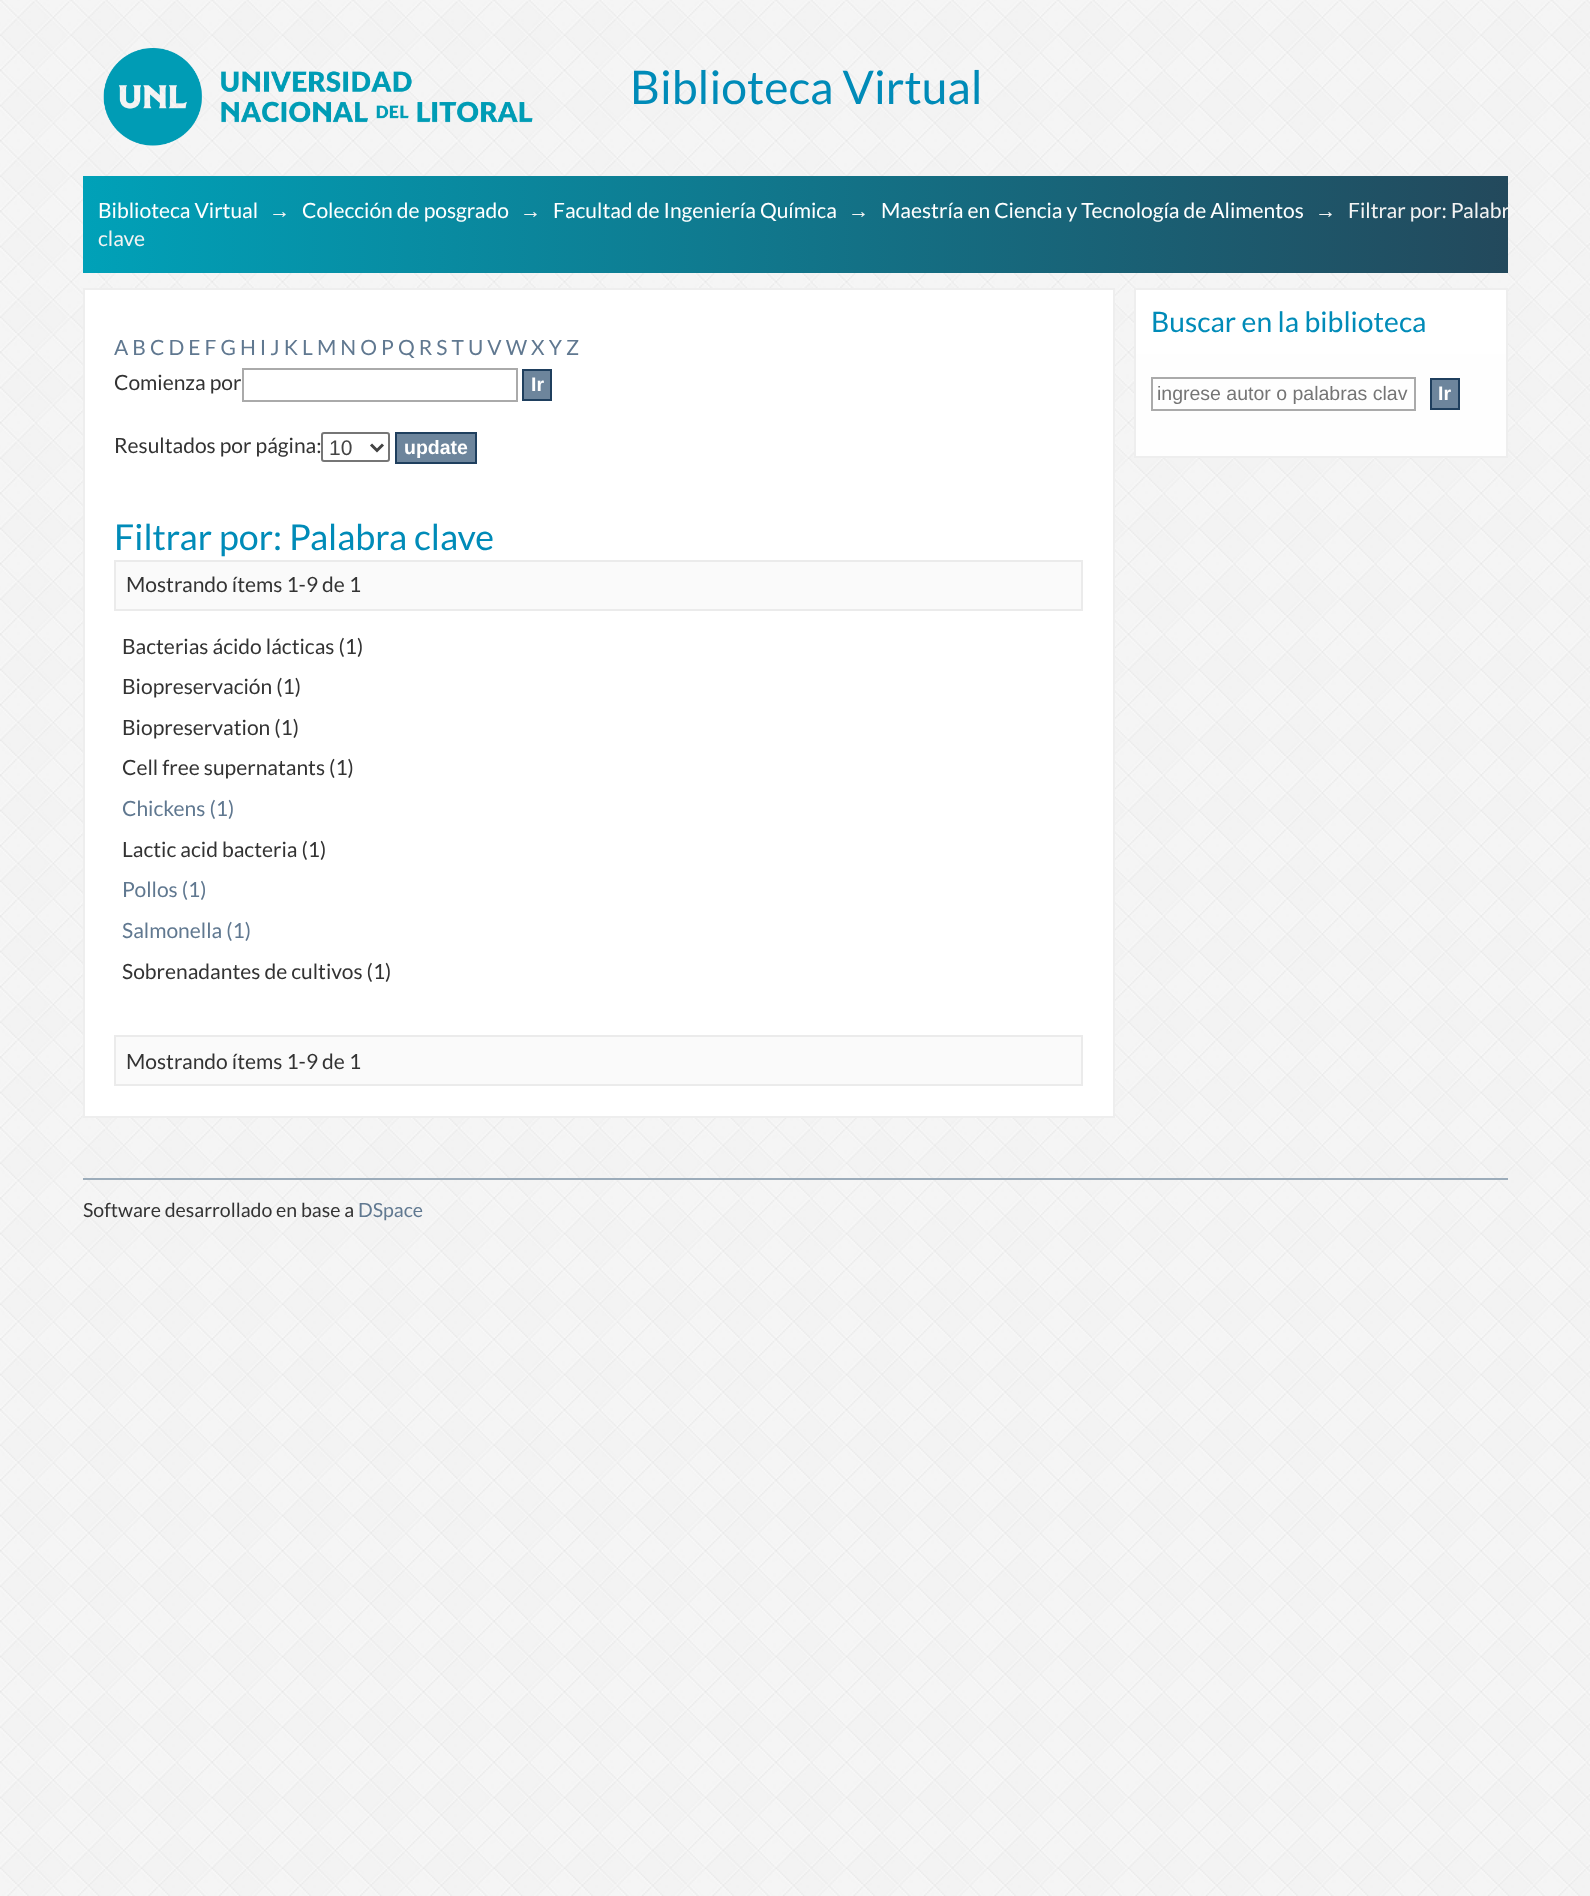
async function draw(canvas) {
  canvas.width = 1590
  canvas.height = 1896
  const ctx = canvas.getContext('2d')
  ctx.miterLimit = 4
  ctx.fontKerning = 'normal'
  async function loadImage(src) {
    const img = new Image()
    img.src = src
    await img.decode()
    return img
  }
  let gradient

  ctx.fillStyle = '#fff'
  ctx.fillRect(0, 0, 1590, 1896)
  ctx.drawImage(await loadImage('image0.png'), 0, 0, 1590, 1896)
  ctx.drawImage(await loadImage('image1.png'), 103, 48, 430, 98)
  ctx.font = '46.25px Lato'
  ctx.fillStyle = '#008bb8'
  ctx.fillText('Biblioteca Virtual', 630, 104)
  gradient = ctx.createLinearGradient(83, 224, 1508, 224)
  gradient.addColorStop(0, '#00a1b8')
  gradient.addColorStop(1, '#23495c')
  ctx.fillStyle = gradient
  ctx.fillRect(83, 176, 1425, 97)
  ctx.font = '21px Lato'
  ctx.fillStyle = '#fff'
  ctx.fillText('Biblioteca Virtual', 98, 218)
  ctx.font = '21px Liberation Sans'
  ctx.fillStyle = '#f3f3f3'
  ctx.fillText('→', 269, 218)
  ctx.font = '21px Lato'
  ctx.fillStyle = '#fff'
  ctx.fillText('Colección de posgrado', 302, 218)
  ctx.font = '21px Liberation Sans'
  ctx.fillStyle = '#f3f3f3'
  ctx.fillText('→', 520, 218)
  ctx.font = '21px Lato'
  ctx.fillStyle = '#fff'
  ctx.fillText('Facultad de Ingeniería Química', 553, 218)
  ctx.font = '21px Liberation Sans'
  ctx.fillStyle = '#f3f3f3'
  ctx.fillText('→', 848, 218)
  ctx.font = '21px Lato'
  ctx.fillStyle = '#fff'
  ctx.fillText('Maestría en Ciencia y Tecnología de Alimentos', 881, 218)
  ctx.font = '21px Liberation Sans'
  ctx.fillStyle = '#f3f3f3'
  ctx.fillText('→', 1315, 218)
  ctx.font = '21px Lato'
  ctx.fillText('Filtrar por: Palabr', 1348, 218)
  ctx.fillText('clave', 98, 246)
  ctx.fillStyle = '#fff'
  ctx.beginPath()
  ctx.rect(84, 289, 1030, 828)
  ctx.fill()
  ctx.strokeStyle = '#eee'
  ctx.lineWidth = 2
  ctx.stroke()
  ctx.fillStyle = '#607890'
  ctx.fillText('A B C D E F G H I J K L M N O P Q R S T U V W X Y Z', 114, 355)
  ctx.fillStyle = '#333'
  ctx.fillText('Comienza por', 114, 390)
  ctx.strokeStyle = '#aaa'
  ctx.strokeRect(243, 369, 274, 32)
  ctx.fillStyle = '#6d859c'
  ctx.beginPath()
  ctx.rect(523, 370, 28, 30)
  ctx.fill()
  ctx.strokeStyle = '#1f3f5e'
  ctx.stroke()
  ctx.font = 'bold 19.5px Liberation Sans'
  ctx.fillStyle = '#fff'
  ctx.fillText('Ir', 531, 391)
  ctx.font = '21px Lato'
  ctx.fillStyle = '#333'
  ctx.fillText('Resultados por página:', 114, 453)
  ctx.beginPath()
  ctx.roundRect(322, 433, 67, 28, 2)
  ctx.strokeStyle = '#767676'
  ctx.stroke()
  ctx.beginPath()
  ctx.moveTo(371, 444.5)
  ctx.lineTo(377, 450.5)
  ctx.lineTo(383, 444.5)
  ctx.strokeStyle = '#444'
  ctx.lineWidth = 3
  ctx.stroke()
  ctx.font = '21px Liberation Sans'
  ctx.fillStyle = '#444'
  ctx.fillText('10', 329, 455)
  ctx.fillStyle = '#6d859c'
  ctx.beginPath()
  ctx.rect(396, 433, 80, 30)
  ctx.fill()
  ctx.strokeStyle = '#1f3f5e'
  ctx.lineWidth = 2
  ctx.stroke()
  ctx.font = 'bold 19.5px Liberation Sans'
  ctx.fillStyle = '#fff'
  ctx.fillText('update', 404, 454)
  ctx.font = '35.75px Lato'
  ctx.fillStyle = '#008bb8'
  ctx.fillText('Filtrar por: Palabra clave', 114, 550)
  ctx.fillStyle = '#fafafa'
  ctx.beginPath()
  ctx.rect(115, 561, 967, 49)
  ctx.fill()
  ctx.strokeStyle = '#ebebeb'
  ctx.stroke()
  ctx.font = '21px Lato'
  ctx.fillStyle = '#333'
  ctx.fillText('Mostrando ítems 1-9 de 1', 126, 592)
  ctx.fillText('Bacterias ácido lácticas (1)', 122, 654)
  ctx.fillText('Biopreservación (1)', 122, 694)
  ctx.fillText('Biopreservation (1)', 122, 735)
  ctx.fillText('Cell free supernatants (1)', 122, 775)
  ctx.fillStyle = '#607890'
  ctx.fillText('Chickens (1)', 122, 816)
  ctx.fillStyle = '#333'
  ctx.fillText('Lactic acid bacteria (1)', 122, 857)
  ctx.fillStyle = '#607890'
  ctx.fillText('Pollos (1)', 122, 897)
  ctx.fillText('Salmonella (1)', 122, 938)
  ctx.fillStyle = '#333'
  ctx.fillText('Sobrenadantes de cultivos (1)', 122, 979)
  ctx.fillStyle = '#fafafa'
  ctx.beginPath()
  ctx.rect(115, 1036, 967, 49)
  ctx.fill()
  ctx.stroke()
  ctx.fillStyle = '#333'
  ctx.fillText('Mostrando ítems 1-9 de 1', 126, 1069)
  ctx.fillStyle = '#fff'
  ctx.fillRect(1136, 290, 370, 64)
  ctx.fillStyle = '#eee'
  ctx.fillRect(1134, 288, 374, 2)
  ctx.fillRect(1506, 288, 2, 170)
  ctx.fillRect(1134, 288, 2, 66)
  ctx.font = '28.25px Lato'
  ctx.fillStyle = '#008bb8'
  ctx.fillText('Buscar en la biblioteca', 1151, 332)
  ctx.fillStyle = '#fefefe'
  ctx.fillRect(1136, 354, 370, 102)
  ctx.fillStyle = '#eee'
  ctx.fillRect(1134, 456, 374, 2)
  ctx.fillRect(1134, 354, 2, 104)
  ctx.strokeStyle = '#aaa'
  ctx.strokeRect(1152, 378, 263, 32)
  ctx.font = '19.5px Liberation Sans'
  ctx.fillStyle = '#757575'
  ctx.fillText('ingrese autor o palabras clav', 1157, 400)
  ctx.fillStyle = '#6d859c'
  ctx.beginPath()
  ctx.rect(1431, 379, 28, 30)
  ctx.fill()
  ctx.strokeStyle = '#1f3f5e'
  ctx.stroke()
  ctx.font = 'bold 19.5px Liberation Sans'
  ctx.fillStyle = '#fff'
  ctx.fillText('Ir', 1438, 400)
  ctx.fillStyle = '#9cacba'
  ctx.fillRect(83, 1178, 1425, 2)
  ctx.font = '19.5px Lato'
  ctx.fillStyle = '#333'
  ctx.fillText('Software desarrollado en base a', 83, 1217)
  ctx.fillStyle = '#607890'
  ctx.fillText('DSpace', 358, 1217)
}

draw(document.querySelector('canvas'))
